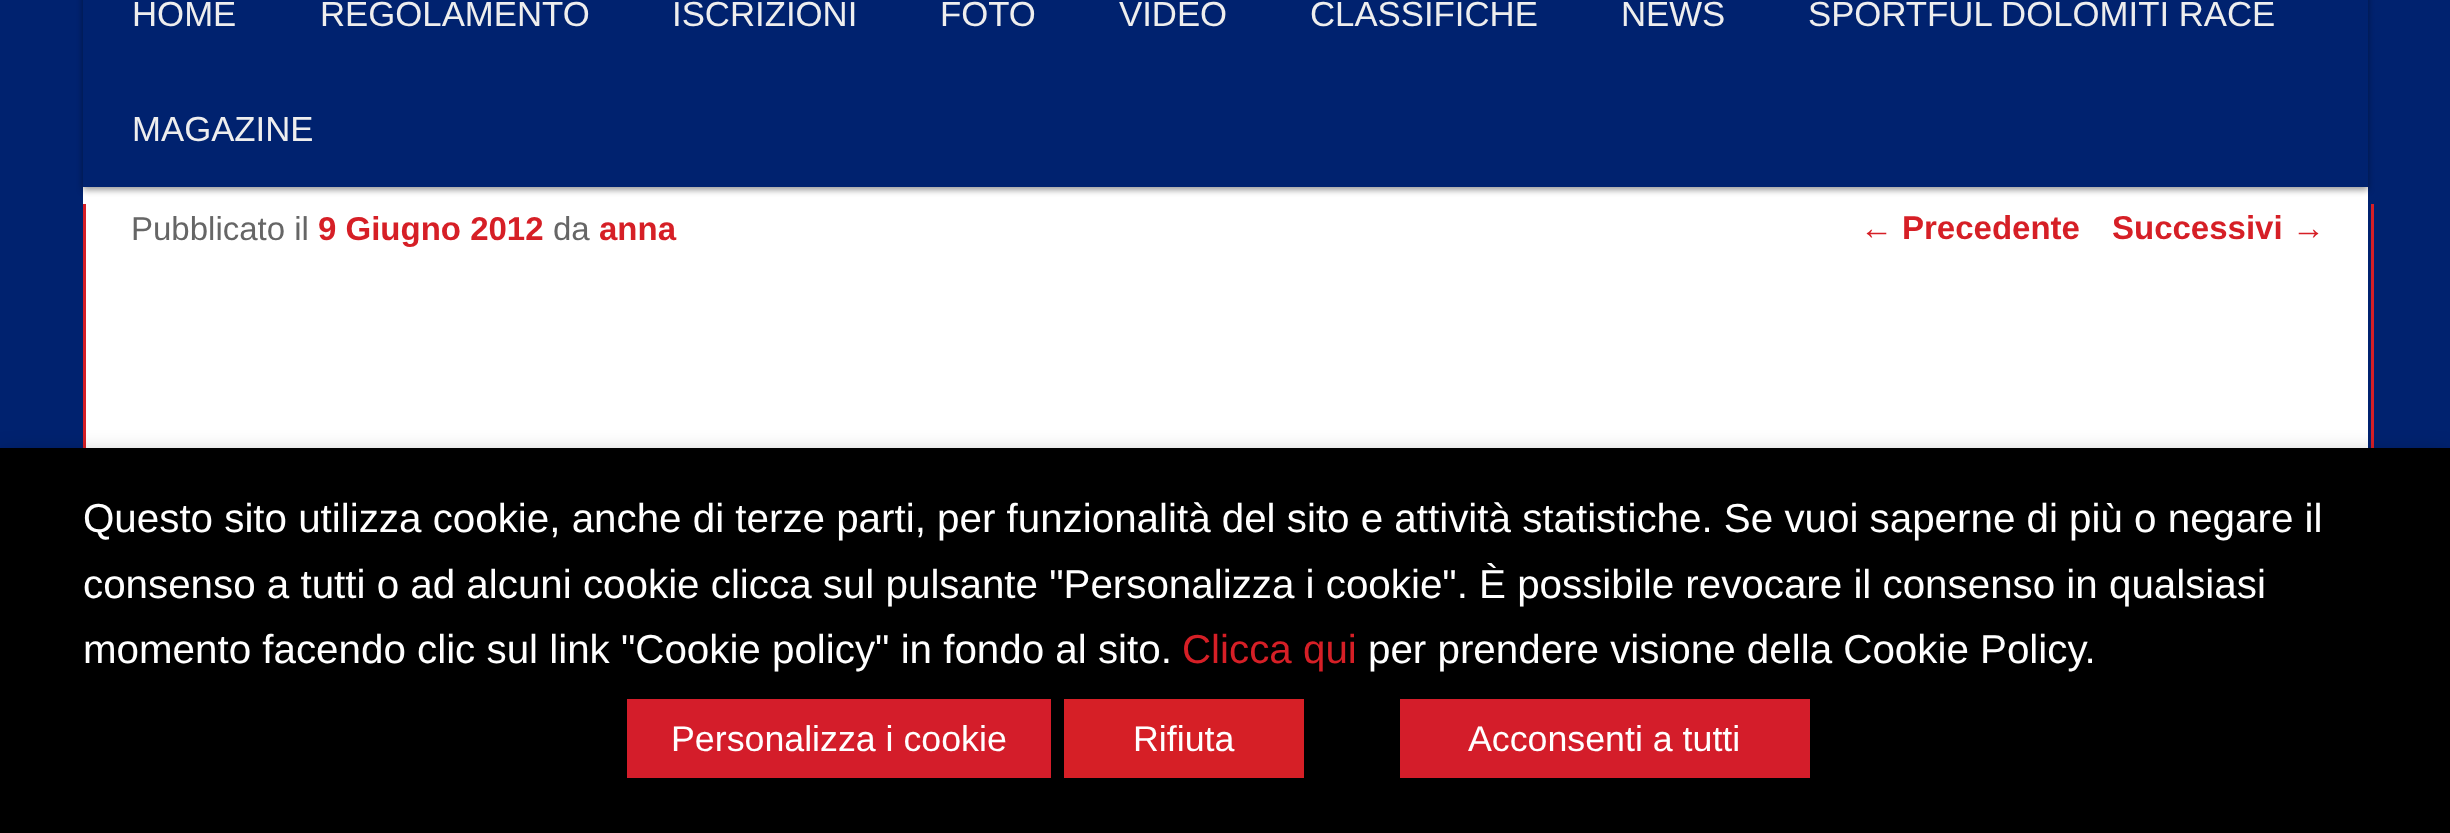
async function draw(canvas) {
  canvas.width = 2450
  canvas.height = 833
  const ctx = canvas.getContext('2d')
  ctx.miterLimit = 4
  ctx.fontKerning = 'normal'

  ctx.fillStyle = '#00226f'
  ctx.fillRect(0, 0, 2450, 833)
  ctx.fillStyle = '#fff'
  ctx.fillRect(83, 187, 2285, 261)
  ctx.fillStyle = '#00000066'
  ctx.filter = 'blur(3px)'
  ctx.beginPath()
  ctx.rect(83, -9, 2285, 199)
  ctx.fill()
  ctx.filter = 'none'
  ctx.fillStyle = '#00226f'
  ctx.fillRect(83, 0, 2285, 187)
  ctx.font = '34.75px Liberation Sans'
  ctx.fillStyle = '#eee'
  ctx.fillText('HOME', 132, 26)
  ctx.fillText('REGOLAMENTO', 320, 26)
  ctx.fillText('ISCRIZIONI', 672, 26)
  ctx.fillText('FOTO', 940, 26)
  ctx.fillText('VIDEO', 1119, 26)
  ctx.fillText('CLASSIFICHE', 1310, 26)
  ctx.fillText('NEWS', 1621, 26)
  ctx.fillText('SPORTFUL DOLOMITI RACE', 1808, 26)
  ctx.fillText('MAGAZINE', 132, 141)
  ctx.fillStyle = '#d61f26'
  ctx.fillRect(2371, 204, 3, 244)
  ctx.fillRect(83, 204, 3, 244)
  ctx.font = '33px Liberation Sans'
  ctx.fillStyle = '#666'
  ctx.fillText('Pubblicato il', 131, 240)
  ctx.font = 'bold 33px Liberation Sans'
  ctx.fillStyle = '#d61f26'
  ctx.fillText('9 Giugno 2012', 318, 240)
  ctx.font = '33px Liberation Sans'
  ctx.fillStyle = '#666'
  ctx.fillText('da', 553, 240)
  ctx.font = 'bold 33px Liberation Sans'
  ctx.fillStyle = '#d61f26'
  ctx.fillText('anna', 599, 240)
  ctx.font = '33px Liberation Sans'
  ctx.fillText('←', 1860, 239)
  ctx.font = 'bold 33px Liberation Sans'
  ctx.fillText('Precedente', 1902, 239)
  ctx.fillText('Successivi', 2112, 239)
  ctx.font = '33px Liberation Sans'
  ctx.fillText('→', 2292, 239)
  ctx.fillStyle = '#00000080'
  ctx.filter = 'blur(14px)'
  ctx.beginPath()
  ctx.rect(0, 462, 2450, 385)
  ctx.fill()
  ctx.filter = 'none'
  ctx.fillStyle = '#000'
  ctx.fillRect(0, 448, 2450, 385)
  ctx.font = '40.33px Liberation Sans'
  ctx.fillStyle = '#fff'
  ctx.fillText('Questo sito utilizza cookie, anche di terze parti, per funzionalità del sito e attività statistiche. Se vuoi saperne di più o negare il', 83, 532)
  ctx.fillText('consenso a tutti o ad alcuni cookie clicca sul pulsante "Personalizza i cookie". È possibile revocare il consenso in qualsiasi', 83, 598)
  ctx.fillText('momento facendo clic sul link "Cookie policy" in fondo al sito.', 83, 663)
  ctx.fillStyle = '#d61f26'
  ctx.fillText('Clicca qui', 1182, 663)
  ctx.fillStyle = '#fff'
  ctx.fillText('per prendere visione della Cookie Policy.', 1368, 663)
  ctx.fillStyle = '#d41d2a'
  ctx.fillRect(627, 699, 424, 79)
  ctx.font = '35.75px Liberation Sans'
  ctx.fillStyle = '#fff'
  ctx.fillText('Personalizza i cookie', 671, 751)
  ctx.fillStyle = '#d61f26'
  ctx.fillRect(1064, 699, 240, 79)
  ctx.fillStyle = '#fff'
  ctx.fillText('Rifiuta', 1133, 751)
  ctx.fillStyle = '#d41d2a'
  ctx.fillRect(1400, 699, 410, 79)
  ctx.fillStyle = '#fff'
  ctx.fillText('Acconsenti a tutti', 1468, 751)
}

draw(document.querySelector('canvas'))
